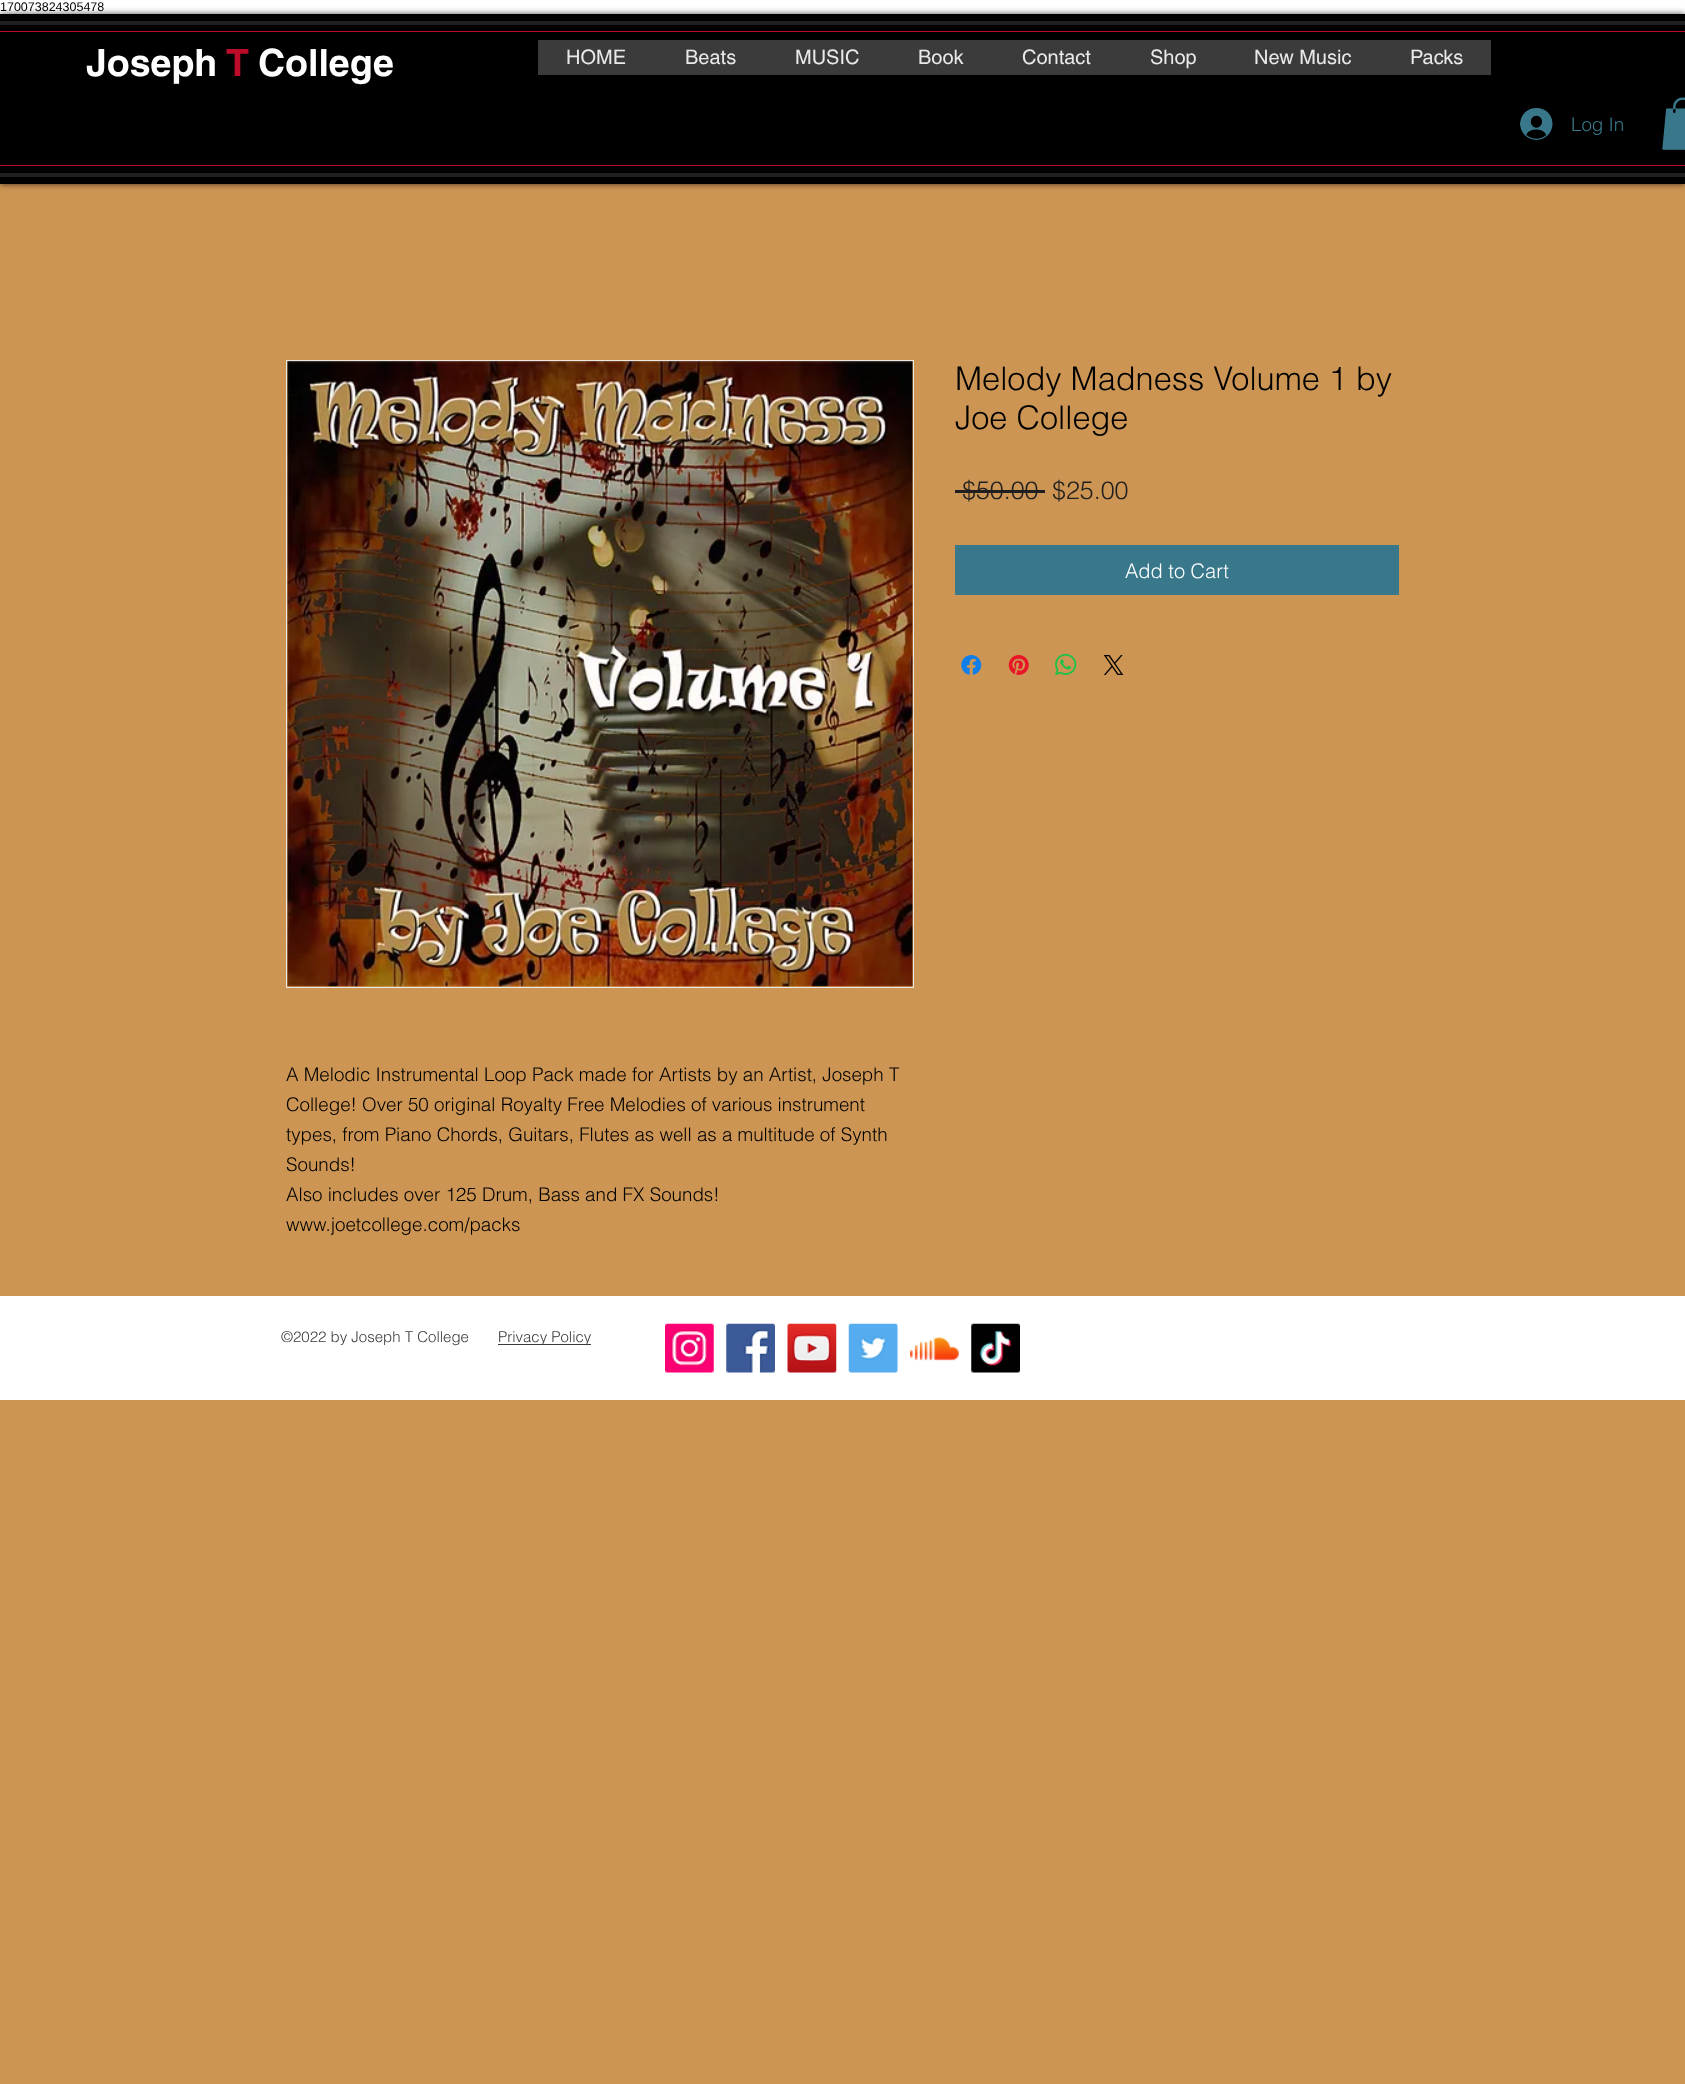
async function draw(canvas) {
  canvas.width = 1685
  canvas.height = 2084
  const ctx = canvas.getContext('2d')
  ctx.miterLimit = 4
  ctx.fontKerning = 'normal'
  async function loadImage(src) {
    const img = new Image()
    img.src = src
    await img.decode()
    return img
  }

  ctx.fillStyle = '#fff'
  ctx.fillRect(0, 0, 1685, 2084)
  ctx.font = '12.5px Liberation Sans'
  ctx.fillStyle = '#000'
  ctx.fillText('170073824305478', 0, 11)
  ctx.fillStyle = '#cd9553'
  ctx.fillRect(0, 184, 1685, 1900)
  ctx.fillStyle = '#000000b3'
  ctx.filter = 'blur(3px)'
  ctx.beginPath()
  ctx.rect(0, 14, 1685, 170)
  ctx.fill()
  ctx.filter = 'none'
  ctx.fillStyle = '#000'
  ctx.fillRect(0, 14, 1685, 170)
  ctx.fillStyle = '#1f1f1f'
  ctx.fillRect(0, 21, 1685, 4)
  ctx.fillRect(0, 173, 1685, 4)
  ctx.fillStyle = '#bd0b29'
  ctx.fillRect(0, 31, 1685, 1)
  ctx.fillRect(0, 165, 1685, 1)
  ctx.font = 'bold 37.5px helvetica'
  ctx.fillStyle = '#fff'
  ctx.fillText('Joseph', 86, 76)
  ctx.fillStyle = '#bd0b29'
  ctx.fillText('T', 226, 76)
  ctx.fillStyle = '#fff'
  ctx.fillText('College', 258, 76)
  ctx.fillStyle = '#3b3b3b'
  ctx.fillRect(538, 40, 953, 35)
  ctx.font = '20px helvetica'
  ctx.fillStyle = '#e9e9e9'
  ctx.fillText('HOME', 566, 64)
  ctx.fillText('Beats', 685, 64)
  ctx.fillText('MUSIC', 795, 64)
  ctx.fillText('Book', 918, 64)
  ctx.fillText('Contact', 1022, 64)
  ctx.fillText('Shop', 1150, 64)
  ctx.fillText('New Music', 1254, 64)
  ctx.fillText('Packs', 1410, 64)
  ctx.drawImage(await loadImage('image0.png'), 1520, 108, 33, 32)
  ctx.font = '300 18.75px helvetica'
  ctx.fillStyle = '#38788a'
  ctx.fillText('Log In', 1571, 131)
  ctx.drawImage(await loadImage('image1.png'), 1662, 97, 23, 53)
  ctx.font = '300 32.5px helvetica'
  ctx.fillStyle = '#000'
  ctx.fillText('Melody Madness Volume 1 by', 955, 390)
  ctx.fillText('Joe College', 955, 429)
  ctx.font = '300 25px helvetica'
  ctx.fillStyle = '#1f1f1f'
  ctx.fillText('$50.00', 962, 499)
  ctx.fillRect(955, 490, 90, 3)
  ctx.fillText('$25.00', 1052, 499)
  ctx.fillStyle = '#38788a'
  ctx.fillRect(955, 545, 444, 50)
  ctx.font = '300 20px helvetica'
  ctx.fillStyle = '#fff'
  ctx.fillText('Add to Cart', 1125, 578)
  ctx.drawImage(await loadImage('image2.png'), 961, 655, 21, 20)
  ctx.drawImage(await loadImage('image3.png'), 1008, 655, 21, 20)
  ctx.drawImage(await loadImage('image4.png'), 1055, 653, 22, 23)
  ctx.drawImage(await loadImage('image5.png'), 1103, 655, 21, 20)
  ctx.strokeStyle = '#e9e9e9'
  ctx.strokeRect(286.5, 360.5, 627, 627)
  ctx.drawImage(await loadImage('image6.png'), 287, 361, 626, 626)
  ctx.font = '300 18.75px helvetica'
  ctx.fillStyle = '#000'
  ctx.fillText('A Melodic Instrumental Loop Pack made for Artists by an Artist, Joseph T', 286, 1081)
  ctx.fillText('College! Over 50 original Royalty Free Melodies of various instrument', 286, 1111)
  ctx.fillText('types, from Piano Chords, Guitars, Flutes as well as a multitude of Synth', 286, 1141)
  ctx.fillText('Sounds!', 286, 1171)
  ctx.fillText('Also includes over 125 Drum, Bass and FX Sounds!', 286, 1201)
  ctx.fillText('www.joetcollege.com/packs', 286, 1231)
  ctx.fillStyle = '#fff'
  ctx.fillRect(0, 1296, 1685, 104)
  ctx.font = '300 15px helvetica'
  ctx.fillStyle = '#3b3b3b'
  ctx.fillText('©2022 by Joseph T College', 281, 1342)
  ctx.fillRect(498, 1344, 93, 1)
  ctx.fillText('Privacy Policy', 498, 1342)
  ctx.drawImage(await loadImage('image7.png'), 665, 1323, 49, 50)
  ctx.drawImage(await loadImage('image8.png'), 726, 1323, 49, 50)
  ctx.drawImage(await loadImage('image9.png'), 787, 1323, 50, 50)
  ctx.drawImage(await loadImage('image10.png'), 848, 1323, 50, 50)
  ctx.drawImage(await loadImage('image11.png'), 910, 1337, 49, 24)
  ctx.drawImage(await loadImage('image12.png'), 971, 1323, 49, 50)
}

draw(document.querySelector('canvas'))
